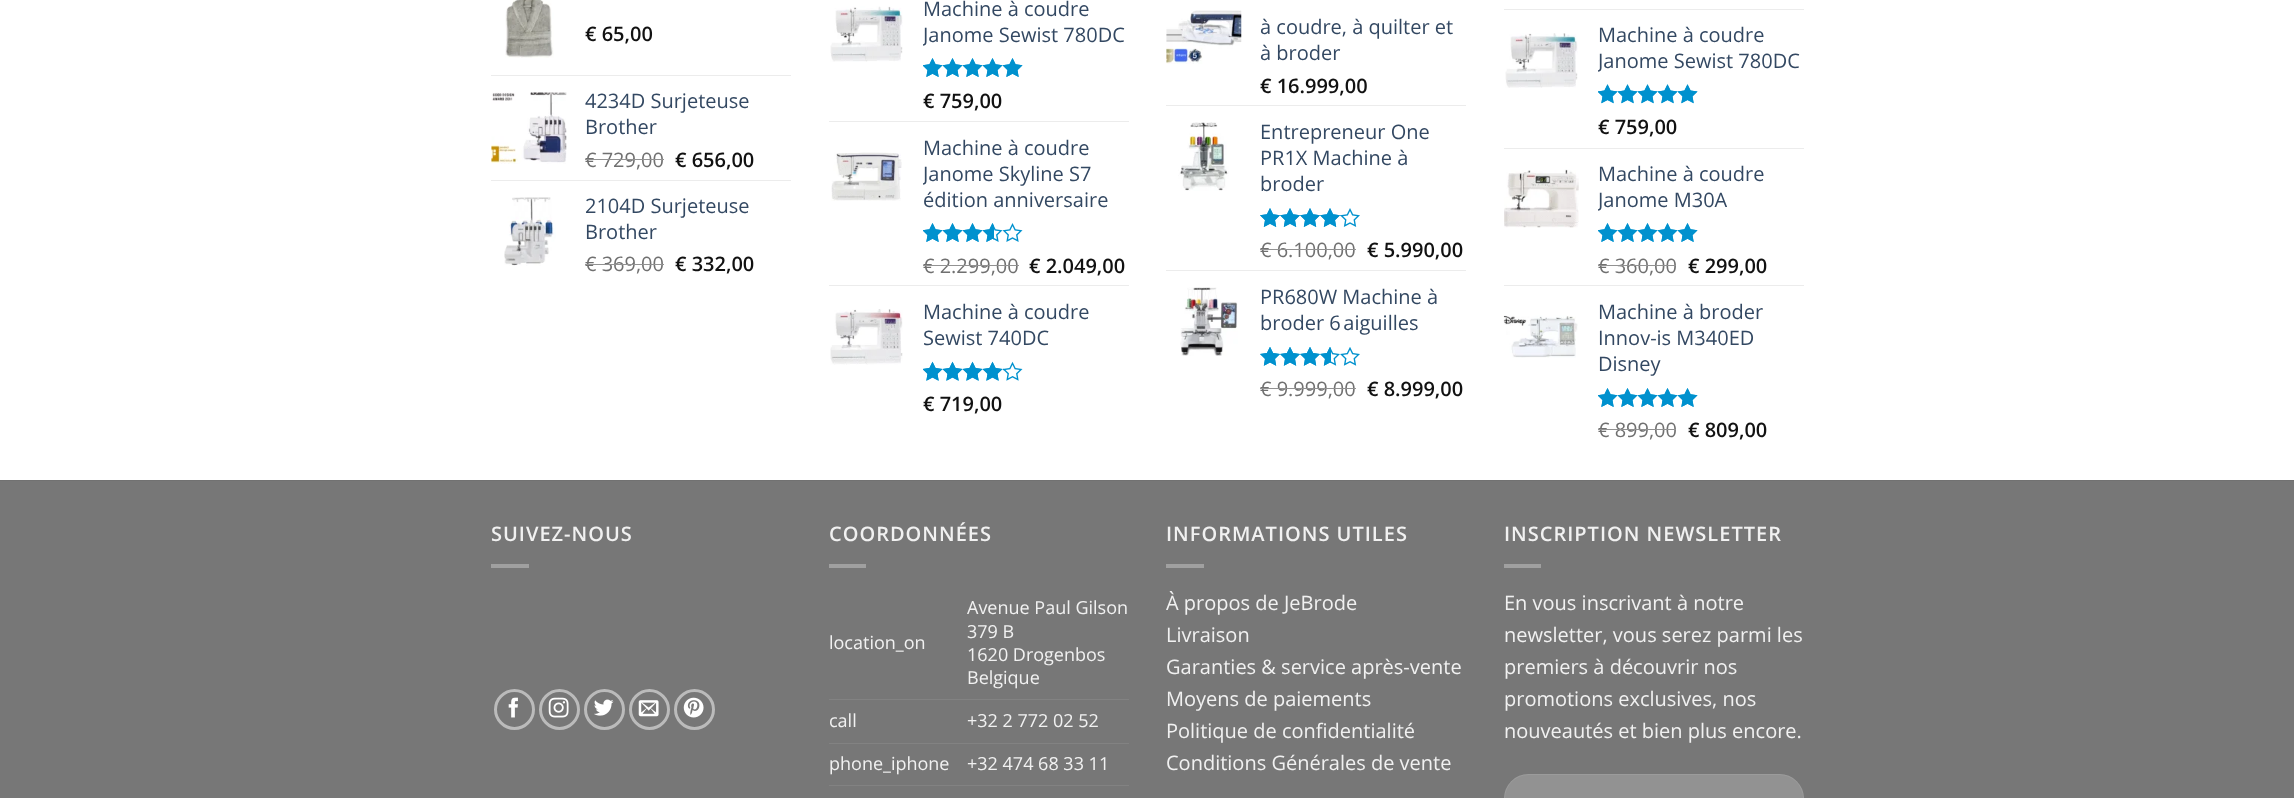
async function draw(canvas) {
  canvas.width = 2294
  canvas.height = 798
  const ctx = canvas.getContext('2d')
  ctx.miterLimit = 4
  ctx.fontKerning = 'normal'
  async function loadImage(src) {
    const img = new Image()
    img.src = src
    await img.decode()
    return img
  }

  ctx.fillStyle = '#fff'
  ctx.fillRect(0, 0, 2294, 798)
  ctx.drawImage(await loadImage('image0.png'), 505, 0, 49, 58)
  ctx.font = '600 20px Open Sans'
  ctx.fillStyle = '#111'
  ctx.fillText('€ 65,00', 585, 41)
  ctx.fillStyle = '#ececec'
  ctx.fillRect(491, 75, 300, 1)
  ctx.drawImage(await loadImage('image1.png'), 491, 92, 76, 72)
  ctx.font = '20px Open Sans'
  ctx.fillStyle = '#334862'
  ctx.fillText('4234D Surjeteuse', 585, 108)
  ctx.fillText('Brother', 585, 134)
  ctx.fillStyle = '#707070'
  ctx.fillText('€ 729,00', 585, 167)
  ctx.fillStyle = '#929292'
  ctx.fillRect(585, 159, 79, 1)
  ctx.font = '600 20px Open Sans'
  ctx.fillStyle = '#111'
  ctx.fillText('€ 656,00', 675, 167)
  ctx.fillStyle = '#ececec'
  ctx.fillRect(491, 180, 300, 1)
  ctx.drawImage(await loadImage('image2.png'), 504, 197, 52, 69)
  ctx.font = '20px Open Sans'
  ctx.fillStyle = '#334862'
  ctx.fillText('2104D Surjeteuse', 585, 213)
  ctx.fillText('Brother', 585, 239)
  ctx.fillStyle = '#707070'
  ctx.fillText('€ 369,00', 585, 271)
  ctx.fillStyle = '#929292'
  ctx.fillRect(585, 264, 79, 1)
  ctx.font = '600 20px Open Sans'
  ctx.fillStyle = '#111'
  ctx.fillText('€ 332,00', 675, 271)
  ctx.drawImage(await loadImage('image3.png'), 830, 6, 73, 56)
  ctx.font = '20px Open Sans'
  ctx.fillStyle = '#334862'
  ctx.fillText('Machine à coudre', 923, 16)
  ctx.save()
  ctx.beginPath()
  ctx.rect(923, 0, 206, 48)
  ctx.clip()
  ctx.fillText('Janome Sewist 780DC', 923, 42)
  ctx.restore()
  ctx.drawImage(await loadImage('image4.png'), 923, 58, 100, 19)
  ctx.drawImage(await loadImage('image5.png'), 923, 58, 100, 19)
  ctx.font = '600 20px Open Sans'
  ctx.fillStyle = '#111'
  ctx.fillText('€ 759,00', 923, 108)
  ctx.fillStyle = '#ececec'
  ctx.fillRect(829, 121, 300, 1)
  ctx.font = '20px Open Sans'
  ctx.fillStyle = '#334862'
  ctx.fillText('Machine à coudre', 923, 155)
  ctx.drawImage(await loadImage('image6.png'), 831, 152, 71, 49)
  ctx.save()
  ctx.beginPath()
  ctx.rect(923, 135, 206, 78)
  ctx.clip()
  ctx.fillText('Janome Skyline S7', 923, 181)
  ctx.restore()
  ctx.fillText('édition anniversaire', 923, 207)
  ctx.drawImage(await loadImage('image4.png'), 923, 223, 100, 19)
  ctx.drawImage(await loadImage('image7.png'), 923, 223, 71, 19)
  ctx.fillStyle = '#707070'
  ctx.fillText('€ 2.299,00', 923, 273)
  ctx.fillStyle = '#929292'
  ctx.fillRect(923, 265, 96, 1)
  ctx.font = '600 20px Open Sans'
  ctx.fillStyle = '#111'
  ctx.fillText('€ 2.049,00', 1029, 273)
  ctx.fillStyle = '#ececec'
  ctx.fillRect(829, 285, 300, 1)
  ctx.drawImage(await loadImage('image8.png'), 830, 309, 73, 56)
  ctx.font = '20px Open Sans'
  ctx.fillStyle = '#334862'
  ctx.fillText('Machine à coudre', 923, 319)
  ctx.fillText('Sewist 740DC', 923, 345)
  ctx.drawImage(await loadImage('image9.png'), 923, 361, 100, 20)
  ctx.drawImage(await loadImage('image10.png'), 923, 361, 81, 20)
  ctx.font = '600 20px Open Sans'
  ctx.fillStyle = '#111'
  ctx.fillText('€ 719,00', 923, 411)
  ctx.drawImage(await loadImage('image11.png'), 1166, 10, 76, 54)
  ctx.font = '20px Open Sans'
  ctx.fillStyle = '#334862'
  ctx.fillText('à coudre, à quilter et', 1260, 34)
  ctx.fillText('à broder', 1260, 60)
  ctx.font = '600 20px Open Sans'
  ctx.fillStyle = '#111'
  ctx.fillText('€ 16.999,00', 1260, 93)
  ctx.fillStyle = '#ececec'
  ctx.fillRect(1166, 105, 300, 1)
  ctx.drawImage(await loadImage('image12.png'), 1178, 122, 51, 69)
  ctx.font = '20px Open Sans'
  ctx.fillStyle = '#334862'
  ctx.fillText('Entrepreneur One', 1260, 139)
  ctx.fillText('PR1X Machine à', 1260, 165)
  ctx.fillText('broder', 1260, 191)
  ctx.drawImage(await loadImage('image13.png'), 1260, 208, 100, 19)
  ctx.drawImage(await loadImage('image14.png'), 1260, 208, 81, 19)
  ctx.fillStyle = '#707070'
  ctx.fillText('€ 6.100,00', 1260, 257)
  ctx.fillStyle = '#929292'
  ctx.fillRect(1260, 249, 96, 1)
  ctx.font = '600 20px Open Sans'
  ctx.fillStyle = '#111'
  ctx.fillText('€ 5.990,00', 1367, 257)
  ctx.fillStyle = '#ececec'
  ctx.fillRect(1166, 270, 300, 1)
  ctx.drawImage(await loadImage('image15.png'), 1180, 287, 58, 69)
  ctx.font = '20px Open Sans'
  ctx.fillStyle = '#334862'
  ctx.fillText('PR680W Machine à', 1260, 304)
  ctx.fillText('broder 6 aiguilles', 1260, 330)
  ctx.drawImage(await loadImage('image16.png'), 1260, 347, 100, 19)
  ctx.drawImage(await loadImage('image17.png'), 1260, 347, 71, 19)
  ctx.fillStyle = '#707070'
  ctx.fillText('€ 9.999,00', 1260, 396)
  ctx.fillStyle = '#929292'
  ctx.fillRect(1260, 388, 96, 1)
  ctx.font = '600 20px Open Sans'
  ctx.fillStyle = '#111'
  ctx.fillText('€ 8.999,00', 1367, 396)
  ctx.fillStyle = '#ececec'
  ctx.fillRect(1504, 9, 300, 1)
  ctx.drawImage(await loadImage('image18.png'), 1505, 33, 73, 55)
  ctx.font = '20px Open Sans'
  ctx.fillStyle = '#334862'
  ctx.fillText('Machine à coudre', 1598, 42)
  ctx.save()
  ctx.beginPath()
  ctx.rect(1598, 23, 206, 51)
  ctx.clip()
  ctx.fillText('Janome Sewist 780DC', 1598, 68)
  ctx.restore()
  ctx.drawImage(await loadImage('image19.png'), 1598, 84, 100, 20)
  ctx.drawImage(await loadImage('image20.png'), 1598, 84, 100, 20)
  ctx.font = '600 20px Open Sans'
  ctx.fillStyle = '#111'
  ctx.fillText('€ 759,00', 1598, 134)
  ctx.fillStyle = '#ececec'
  ctx.fillRect(1504, 148, 300, 1)
  ctx.drawImage(await loadImage('image21.png'), 1504, 169, 75, 59)
  ctx.font = '20px Open Sans'
  ctx.fillStyle = '#334862'
  ctx.fillText('Machine à coudre', 1598, 181)
  ctx.save()
  ctx.beginPath()
  ctx.rect(1598, 161, 206, 52)
  ctx.clip()
  ctx.fillText('Janome M30A', 1598, 207)
  ctx.restore()
  ctx.drawImage(await loadImage('image4.png'), 1598, 223, 100, 19)
  ctx.drawImage(await loadImage('image5.png'), 1598, 223, 100, 19)
  ctx.fillStyle = '#707070'
  ctx.fillText('€ 360,00', 1598, 273)
  ctx.fillStyle = '#929292'
  ctx.fillRect(1598, 265, 78, 1)
  ctx.font = '600 20px Open Sans'
  ctx.fillStyle = '#111'
  ctx.fillText('€ 299,00', 1688, 273)
  ctx.fillStyle = '#ececec'
  ctx.fillRect(1504, 285, 300, 1)
  ctx.font = '20px Open Sans'
  ctx.fillStyle = '#334862'
  ctx.fillText('Machine à broder', 1598, 319)
  ctx.drawImage(await loadImage('image22.png'), 1503, 315, 75, 43)
  ctx.fillText('Innov-is M340ED', 1598, 345)
  ctx.fillText('Disney', 1598, 371)
  ctx.drawImage(await loadImage('image4.png'), 1598, 388, 100, 19)
  ctx.drawImage(await loadImage('image5.png'), 1598, 388, 100, 19)
  ctx.fillStyle = '#707070'
  ctx.fillText('€ 899,00', 1598, 437)
  ctx.fillStyle = '#929292'
  ctx.fillRect(1598, 429, 78, 1)
  ctx.font = '600 20px Open Sans'
  ctx.fillStyle = '#111'
  ctx.fillText('€ 809,00', 1688, 437)
  ctx.fillStyle = '#777'
  ctx.fillRect(0, 481, 2294, 317)
  ctx.fillStyle = '#717171'
  ctx.fillRect(0, 480, 2294, 1)
  ctx.letterSpacing = '1px'
  ctx.fillStyle = '#f1f1f1'
  ctx.fillText('SUIVEZ-NOUS', 491, 541)
  ctx.fillStyle = '#a0a0a0'
  ctx.fillRect(491, 564, 38, 4)
  ctx.beginPath()
  ctx.arc(514.5, 709.5, 19, 0, 2 * Math.PI)
  ctx.strokeStyle = '#bbb'
  ctx.lineWidth = 3
  ctx.stroke()
  ctx.drawImage(await loadImage('image23.png'), 508, 697, 10, 21)
  ctx.beginPath()
  ctx.arc(559.5, 709.5, 19, 0, 2 * Math.PI)
  ctx.stroke()
  ctx.drawImage(await loadImage('image24.png'), 548, 697, 21, 21)
  ctx.beginPath()
  ctx.arc(604.5, 709.5, 19, 0, 2 * Math.PI)
  ctx.stroke()
  ctx.drawImage(await loadImage('image25.png'), 594, 699, 20, 17)
  ctx.beginPath()
  ctx.arc(649.5, 709.5, 19, 0, 2 * Math.PI)
  ctx.stroke()
  ctx.drawImage(await loadImage('image26.png'), 638, 700, 21, 17)
  ctx.beginPath()
  ctx.arc(694.5, 709.5, 19, 0, 2 * Math.PI)
  ctx.stroke()
  ctx.drawImage(await loadImage('image27.png'), 683, 697, 21, 21)
  ctx.fillStyle = '#f1f1f1'
  ctx.fillText('COORDONNÉES', 829, 541)
  ctx.fillStyle = '#a0a0a0'
  ctx.fillRect(829, 564, 37, 4)
  ctx.fillStyle = '#828282'
  ctx.fillRect(829, 699, 300, 1)
  ctx.letterSpacing = '0px'
  ctx.font = '18px Open Sans'
  ctx.fillStyle = '#f1f1f1'
  ctx.fillText('location_on', 829, 649)
  ctx.fillText('Avenue Paul Gilson', 967, 614)
  ctx.fillText('379 B', 967, 638)
  ctx.fillText('1620 Drogenbos', 967, 661)
  ctx.fillText('Belgique', 967, 684)
  ctx.fillStyle = '#828282'
  ctx.fillRect(829, 743, 300, 1)
  ctx.fillStyle = '#f1f1f1'
  ctx.fillText('call', 829, 727)
  ctx.fillText('+32 2 772 02 52', 967, 727)
  ctx.fillStyle = '#828282'
  ctx.fillRect(829, 785, 300, 1)
  ctx.fillStyle = '#f1f1f1'
  ctx.fillText('phone_iphone', 829, 770)
  ctx.fillText('+32 474 68 33 11', 967, 770)
  ctx.letterSpacing = '1px'
  ctx.font = '600 20px Open Sans'
  ctx.fillText('INFORMATIONS UTILES', 1166, 541)
  ctx.fillStyle = '#a0a0a0'
  ctx.fillRect(1166, 564, 38, 4)
  ctx.letterSpacing = '0px'
  ctx.font = '20px Open Sans'
  ctx.fillStyle = '#f1f1f1'
  ctx.fillText('À propos de JeBrode', 1166, 610)
  ctx.fillText('Livraison', 1166, 642)
  ctx.fillText('Garanties & service après-vente', 1166, 674)
  ctx.fillText('Moyens de paiements', 1166, 706)
  ctx.fillText('Politique de confidentialité', 1166, 738)
  ctx.fillText('Conditions Générales de vente', 1166, 770)
  ctx.letterSpacing = '1px'
  ctx.font = '600 20px Open Sans'
  ctx.fillText('INSCRIPTION NEWSLETTER', 1504, 541)
  ctx.fillStyle = '#a0a0a0'
  ctx.fillRect(1504, 564, 37, 4)
  ctx.letterSpacing = '0px'
  ctx.font = '20px Open Sans'
  ctx.fillStyle = '#f1f1f1'
  ctx.fillText('En vous inscrivant à notre', 1504, 610)
  ctx.fillText('newsletter, vous serez parmi les', 1504, 642)
  ctx.fillText('premiers à découvrir nos', 1504, 674)
  ctx.fillText('promotions exclusives, nos', 1504, 706)
  ctx.fillText('nouveautés et bien plus encore.', 1504, 738)
  ctx.fillStyle = '#929292'
  ctx.beginPath()
  ctx.roundRect(1504, 774, 300, 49, 24.5)
  ctx.fill()
  ctx.beginPath()
  ctx.roundRect(1504.5, 774.5, 299, 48, 24)
  ctx.strokeStyle = '#ffffff17'
  ctx.lineWidth = 1
  ctx.stroke()
}

draw(document.querySelector('canvas'))
